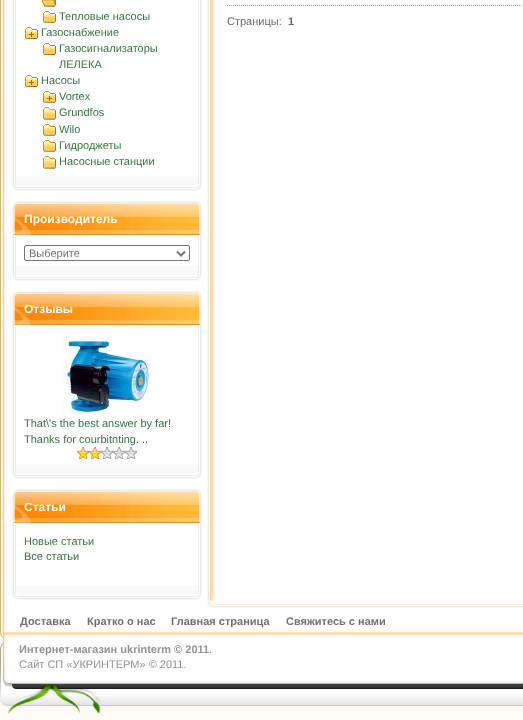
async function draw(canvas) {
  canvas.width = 523
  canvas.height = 720
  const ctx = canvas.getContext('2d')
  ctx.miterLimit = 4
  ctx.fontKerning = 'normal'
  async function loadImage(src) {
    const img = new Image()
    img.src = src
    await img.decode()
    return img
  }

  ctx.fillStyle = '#fffcf8'
  ctx.fillRect(0, 0, 523, 720)
  ctx.fillStyle = '#fff'
  ctx.fillRect(214, 0, 309, 598)
  ctx.drawImage(await loadImage('image0.png'), 0, 0, 214, 610)
  ctx.drawImage(await loadImage('image1.png'), 207, 598, 316, 12)
  ctx.drawImage(await loadImage('image2.png'), 12, 0, 190, 176)
  ctx.drawImage(await loadImage('image3.png'), 12, 176, 190, 15)
  ctx.drawImage(await loadImage('image4.png'), 42, 0, 14, 7)
  ctx.drawImage(await loadImage('image5.png'), 43, 11, 13, 12)
  ctx.font = '11px Liberation Sans'
  ctx.fillStyle = '#387543'
  ctx.fillText('Тепловые насосы', 59, 20)
  ctx.drawImage(await loadImage('image6.png'), 25, 27, 13, 12)
  ctx.fillText('Газоснабжение', 41, 36)
  ctx.drawImage(await loadImage('image7.png'), 43, 43, 13, 12)
  ctx.fillText('Газосигнализаторы', 59, 52)
  ctx.fillText('ЛЕЛЕКА', 59, 68)
  ctx.drawImage(await loadImage('image6.png'), 25, 75, 13, 12)
  ctx.fillText('Насосы', 41, 84)
  ctx.drawImage(await loadImage('image8.png'), 43, 91, 13, 12)
  ctx.fillText('Vortex', 59, 100)
  ctx.drawImage(await loadImage('image9.png'), 43, 107, 13, 13)
  ctx.fillText('Grundfos', 59, 116)
  ctx.drawImage(await loadImage('image5.png'), 43, 124, 13, 12)
  ctx.fillText('Wilo', 59, 133)
  ctx.drawImage(await loadImage('image5.png'), 43, 140, 13, 12)
  ctx.fillText('Гидроджеты', 59, 149)
  ctx.drawImage(await loadImage('image9.png'), 43, 156, 13, 13)
  ctx.fillText('Насосные станции', 59, 165)
  ctx.drawImage(await loadImage('image10.png'), 12, 236, 190, 30)
  ctx.drawImage(await loadImage('image3.png'), 12, 266, 190, 15)
  ctx.drawImage(await loadImage('image11.png'), 12, 201, 190, 35)
  ctx.font = 'bold 12px Liberation Sans'
  ctx.fillStyle = '#fff'
  ctx.fillText('Производитель', 24, 223)
  ctx.beginPath()
  ctx.roundRect(24.5, 245.5, 165, 15, 1.5)
  ctx.strokeStyle = '#767676'
  ctx.stroke()
  ctx.beginPath()
  ctx.moveTo(177, 251.5)
  ctx.lineTo(181, 255.5)
  ctx.lineTo(185, 251.5)
  ctx.strokeStyle = '#777'
  ctx.lineWidth = 2
  ctx.stroke()
  ctx.font = '11px Liberation Sans'
  ctx.fillStyle = '#727272'
  ctx.fillText('Выберите', 29, 257)
  ctx.drawImage(await loadImage('image12.png'), 12, 326, 190, 138)
  ctx.drawImage(await loadImage('image3.png'), 12, 464, 190, 15)
  ctx.drawImage(await loadImage('image11.png'), 12, 291, 190, 35)
  ctx.font = 'bold 12px Liberation Sans'
  ctx.fillStyle = '#fff'
  ctx.fillText('Отзывы', 24, 313)
  ctx.drawImage(await loadImage('image13.png'), 62, 336, 91, 80)
  ctx.font = '11px Liberation Sans'
  ctx.fillStyle = '#387543'
  ctx.fillText('That\\\'s the best answer by far!', 24, 427)
  ctx.fillText('Thanks for courbitnting. ..', 24, 443)
  ctx.drawImage(await loadImage('image14.png'), 77, 447, 60, 12)
  ctx.drawImage(await loadImage('image15.png'), 12, 524, 190, 61)
  ctx.drawImage(await loadImage('image3.png'), 12, 585, 190, 15)
  ctx.drawImage(await loadImage('image11.png'), 12, 489, 190, 35)
  ctx.font = 'bold 12px Liberation Sans'
  ctx.fillStyle = '#fff'
  ctx.fillText('Статьи', 24, 511)
  ctx.font = '11px Liberation Sans'
  ctx.fillStyle = '#387543'
  ctx.fillText('Новые статьи', 24, 545)
  ctx.fillText('Все статьи', 24, 560)
  ctx.drawImage(await loadImage('image16.png'), 227, 5, 295, 1)
  ctx.fillStyle = '#6d6a65'
  ctx.fillText('Страницы:', 227, 25)
  ctx.font = 'bold 11px Liberation Sans'
  ctx.fillText('1', 288, 25)
  ctx.fillStyle = '#fff'
  ctx.fillRect(7, 610, 516, 22)
  ctx.drawImage(await loadImage('image17.png'), 0, 610, 7, 22)
  ctx.fillStyle = '#727272'
  ctx.fillText('Доставка', 20, 625)
  ctx.fillText('Кратко о нас', 87, 625)
  ctx.fillText('Главная страница', 171, 625)
  ctx.fillText('Свяжитесь с нами', 286, 625)
  ctx.drawImage(await loadImage('image18.png'), 0, 632, 523, 83)
  ctx.drawImage(await loadImage('image19.png'), 0, 632, 101, 82)
  ctx.fillStyle = '#939393'
  ctx.fillText('Интернет-магазин ukrinterm © 2011', 19, 653)
  ctx.font = '11px Liberation Sans'
  ctx.fillText('.', 209, 653)
  ctx.fillText('Сайт СП «УКРИНТЕРМ» © 2011.', 19, 668)
}

draw(document.querySelector('canvas'))
